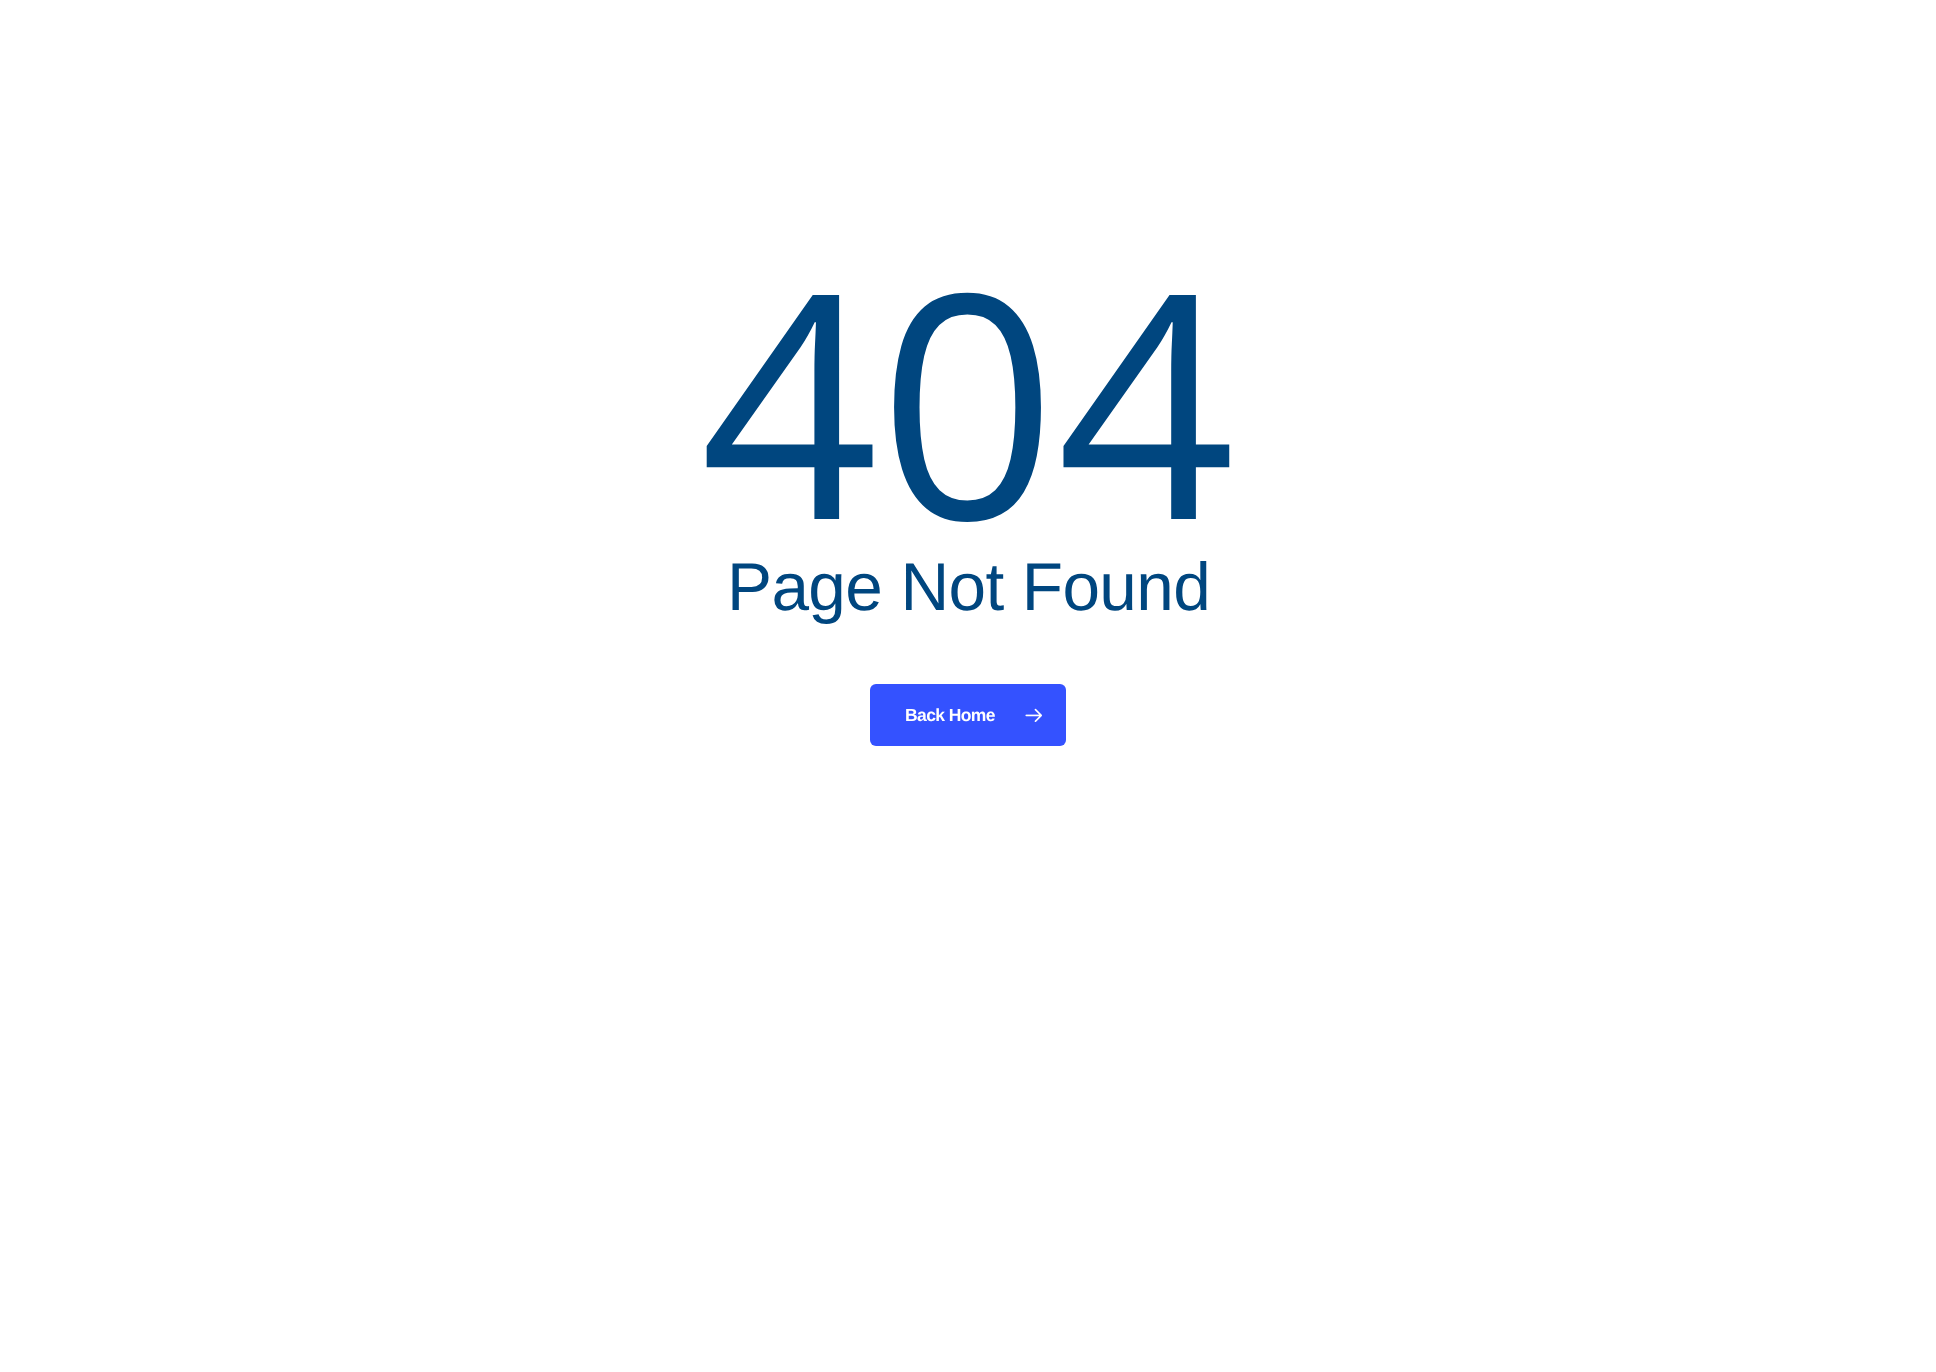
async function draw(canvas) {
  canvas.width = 1936
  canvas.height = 1372
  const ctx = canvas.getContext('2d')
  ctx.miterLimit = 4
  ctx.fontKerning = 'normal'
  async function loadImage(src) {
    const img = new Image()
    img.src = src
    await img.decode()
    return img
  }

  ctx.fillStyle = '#fff'
  ctx.fillRect(0, 0, 1936, 1372)
  ctx.font = '312px Open Sans'
  ctx.fillStyle = '#00467f'
  ctx.fillText('404', 700, 519)
  ctx.letterSpacing = '-0.6px'
  ctx.font = '67.5px Liberation Sans'
  ctx.fillText('Page Not Found', 727, 610)
  ctx.fillStyle = '#3452ff'
  ctx.beginPath()
  ctx.roundRect(870, 684, 196, 62, 6)
  ctx.fill()
  ctx.font = 'bold 17.5px Liberation Sans'
  ctx.fillStyle = '#fff'
  ctx.fillText('Back Home', 905, 721)
  ctx.drawImage(await loadImage('image0.png'), 1025, 708, 17, 14)
}

draw(document.querySelector('canvas'))
